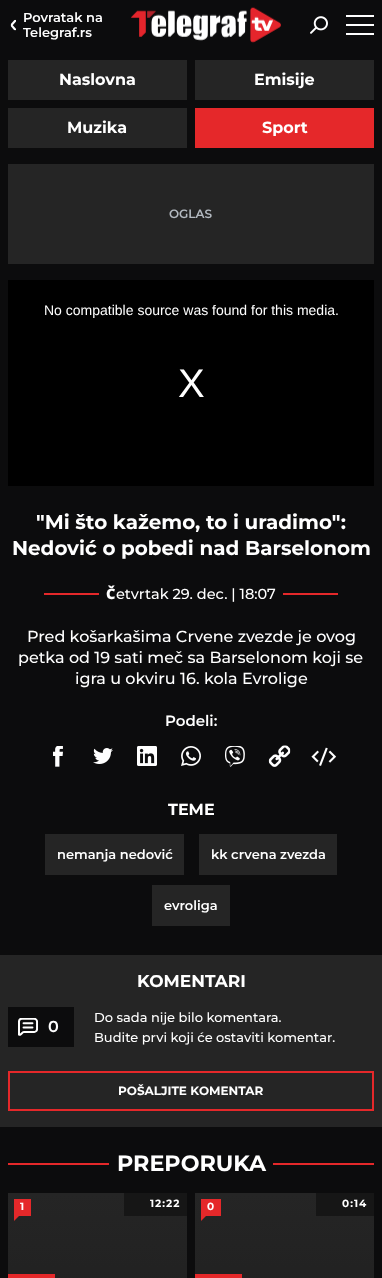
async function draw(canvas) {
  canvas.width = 382
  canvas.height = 1278
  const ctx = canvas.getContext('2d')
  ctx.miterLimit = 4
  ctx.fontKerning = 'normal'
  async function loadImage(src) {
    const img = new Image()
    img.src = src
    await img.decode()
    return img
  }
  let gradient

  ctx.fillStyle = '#0c0c0d'
  ctx.fillRect(0, 0, 382, 1278)
  ctx.font = '600 13px Montserrat'
  ctx.fillStyle = '#fff'
  ctx.fillText('Povratak na', 23, 22)
  ctx.drawImage(await loadImage('image0.png'), 10, 19, 6, 12)
  ctx.fillText('Telegraf.rs', 23, 37)
  ctx.drawImage(await loadImage('image1.png'), 131, 7, 150, 36)
  ctx.drawImage(await loadImage('image2.png'), 310, 16, 18, 18)
  ctx.fillRect(346, 15, 28, 2)
  ctx.fillRect(346, 24, 28, 2)
  ctx.fillRect(346, 33, 28, 2)
  ctx.fillStyle = '#252525'
  ctx.fillRect(8, 60, 179, 40)
  ctx.font = 'bold 16px Montserrat'
  ctx.fillStyle = '#fff'
  ctx.fillText('Naslovna', 59, 85)
  ctx.fillStyle = '#252525'
  ctx.fillRect(195, 60, 179, 40)
  ctx.fillStyle = '#fff'
  ctx.fillText('Emisije', 254, 85)
  ctx.fillStyle = '#252525'
  ctx.fillRect(8, 108, 179, 40)
  ctx.fillStyle = '#fff'
  ctx.fillText('Muzika', 67, 133)
  ctx.fillStyle = '#e5282a'
  ctx.fillRect(195, 108, 179, 40)
  ctx.fillStyle = '#fff'
  ctx.fillText('Sport', 262, 133)
  ctx.fillStyle = '#252525'
  ctx.fillRect(8, 164, 366, 100)
  ctx.font = '600 12px Montserrat'
  ctx.fillStyle = '#b4bac1'
  ctx.fillText('OGLAS', 169, 218)
  ctx.fillStyle = '#000'
  ctx.fillRect(8, 280, 366, 206)
  ctx.font = '14px Liberation Sans'
  ctx.fillStyle = '#fff'
  ctx.fillText('No compatible source was found for this media.', 44, 315)
  ctx.font = '40px Liberation Sans'
  ctx.fillText('X', 178, 397)
  ctx.font = 'bold 19.9px Montserrat'
  ctx.fillText('"Mi što kažemo, to i uradimo":', 36, 529)
  ctx.fillText('Nedović o pobedi nad Barselonom', 12, 555)
  ctx.fillStyle = '#e5282a'
  ctx.fillRect(44, 593, 294, 2)
  ctx.fillStyle = '#0c0c0d'
  ctx.fillRect(99, 593, 184, 2)
  ctx.font = '900 14.5px Noto Sans'
  ctx.fillStyle = '#fff'
  ctx.fillText('Č', 106, 599)
  ctx.font = '500 14.5px Montserrat'
  ctx.fillText('etvrtak 29. dec. | 18:07', 116, 599)
  ctx.font = '500 16px Montserrat'
  ctx.fillText('Pred košarkašima Crvene zvezde je ovog', 27, 642)
  ctx.fillText('petka od 19 sati meč sa Barselonom koji se', 18, 663)
  ctx.fillText('igra u okviru 16. kola Evrolige', 75, 684)
  ctx.font = '600 15px Montserrat'
  ctx.fillText('Podeli:', 165, 726)
  ctx.drawImage(await loadImage('image3.png'), 53, 746, 10, 21)
  ctx.drawImage(await loadImage('image4.png'), 93, 748, 20, 16)
  ctx.drawImage(await loadImage('image5.png'), 137, 746, 20, 20)
  ctx.drawImage(await loadImage('image6.png'), 181, 746, 20, 20)
  ctx.drawImage(await loadImage('image7.png'), 225, 746, 20, 21)
  ctx.drawImage(await loadImage('image8.png'), 268, 745, 23, 22)
  ctx.drawImage(await loadImage('image9.png'), 311, 747, 26, 19)
  ctx.font = 'bold 16px Montserrat'
  ctx.fillText('TEME', 168, 815)
  ctx.fillStyle = '#252525'
  ctx.fillRect(45, 834, 139, 41)
  ctx.font = '600 13px Montserrat'
  ctx.fillStyle = '#fff'
  ctx.fillText('nemanja nedović', 57, 859)
  ctx.fillStyle = '#252525'
  ctx.fillRect(199, 834, 138, 41)
  ctx.fillStyle = '#fff'
  ctx.fillText('kk crvena zvezda', 211, 859)
  ctx.fillStyle = '#252525'
  ctx.fillRect(152, 885, 78, 41)
  ctx.fillStyle = '#fff'
  ctx.fillText('evroliga', 164, 910)
  ctx.fillStyle = '#252525'
  ctx.fillRect(0, 955, 382, 172)
  ctx.font = 'bold 17px Montserrat'
  ctx.fillStyle = '#fff'
  ctx.fillText('KOMENTARI', 137, 987)
  ctx.fillStyle = '#0c0c0d'
  ctx.fillRect(8, 1007, 66, 40)
  ctx.drawImage(await loadImage('image10.png'), 18, 1018, 20, 18)
  ctx.letterSpacing = '1px'
  ctx.font = '600 16px Montserrat'
  ctx.fillStyle = '#fff'
  ctx.fillText('0', 48, 1032)
  ctx.letterSpacing = '0px'
  ctx.font = '500 13px Montserrat'
  ctx.fillText('Do sada nije bilo komentara.', 94, 1022)
  ctx.fillText('Budite prvi koji će ostaviti komentar.', 94, 1042)
  ctx.strokeStyle = '#e5282a'
  ctx.lineWidth = 2
  ctx.strokeRect(9, 1072, 364, 38)
  ctx.font = 'bold 12px Montserrat'
  ctx.fillText('POŠALJITE KOMENTAR', 118, 1095)
  ctx.fillStyle = '#e5282a'
  ctx.fillRect(8, 1163, 366, 2)
  ctx.fillStyle = '#0c0c0d'
  ctx.fillRect(109, 1163, 164, 2)
  ctx.font = 'bold 22.25px Montserrat'
  ctx.fillStyle = '#fff'
  ctx.fillText('PREPORUKA', 117, 1171)
  gradient = ctx.createLinearGradient(98, 1193, 98, 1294)
  gradient.addColorStop(0, '#252525')
  gradient.addColorStop(1, '#212121')
  ctx.fillStyle = gradient
  ctx.fillRect(8, 1193, 179, 85)
  ctx.fillStyle = '#e5282a'
  ctx.fillRect(14, 1199, 17, 17)
  ctx.letterSpacing = '1px'
  ctx.font = 'bold 10.5px Montserrat'
  ctx.fillStyle = '#fff'
  ctx.fillText('1', 20, 1210)
  ctx.fillStyle = '#e5282a'
  ctx.beginPath()
  ctx.moveTo(14, 1216)
  ctx.lineTo(19, 1216)
  ctx.lineTo(14, 1221)
  ctx.closePath()
  ctx.fill()
  ctx.fillStyle = '#161616'
  ctx.fillRect(124, 1193, 63, 23)
  ctx.fillStyle = '#fff'
  ctx.fillText('12:22', 150, 1207)
  ctx.fillStyle = '#e5282a'
  ctx.fillRect(8, 1274, 47, 4)
  gradient = ctx.createLinearGradient(285, 1193, 285, 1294)
  gradient.addColorStop(0, '#252525')
  gradient.addColorStop(1, '#212121')
  ctx.fillStyle = gradient
  ctx.fillRect(195, 1193, 179, 85)
  ctx.fillStyle = '#e5282a'
  ctx.fillRect(201, 1199, 20, 17)
  ctx.fillStyle = '#fff'
  ctx.fillText('0', 207, 1210)
  ctx.fillStyle = '#e5282a'
  ctx.beginPath()
  ctx.moveTo(201, 1216)
  ctx.lineTo(206, 1216)
  ctx.lineTo(201, 1221)
  ctx.closePath()
  ctx.fill()
  ctx.fillStyle = '#161616'
  ctx.fillRect(316, 1193, 58, 23)
  ctx.fillStyle = '#fff'
  ctx.fillText('0:14', 342, 1207)
  ctx.fillStyle = '#e5282a'
  ctx.fillRect(195, 1274, 47, 4)
}

draw(document.querySelector('canvas'))
